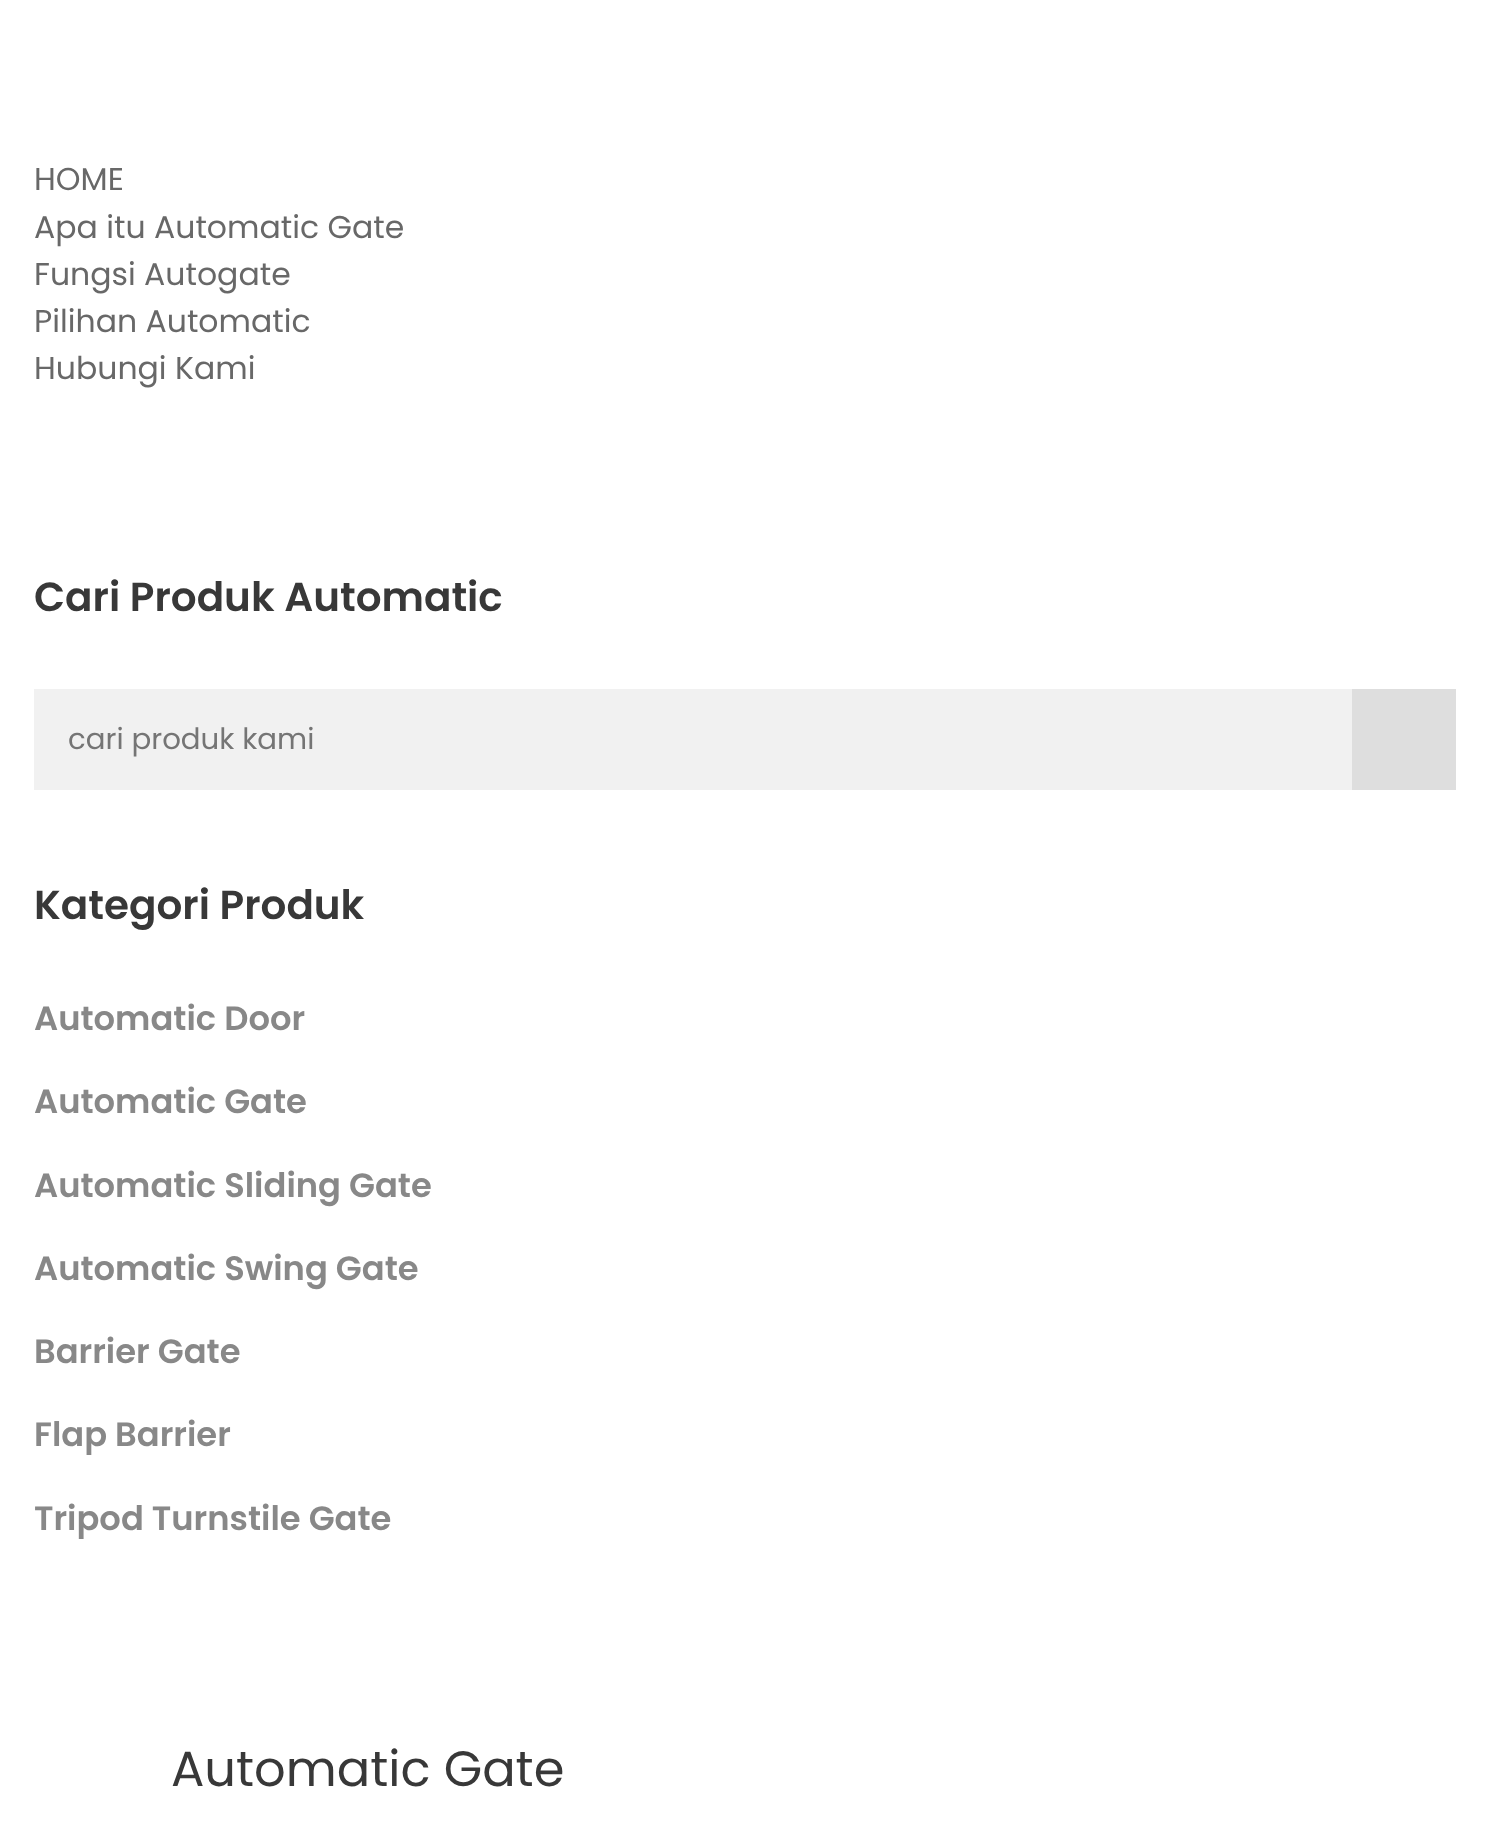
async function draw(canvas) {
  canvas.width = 1488
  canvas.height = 1838
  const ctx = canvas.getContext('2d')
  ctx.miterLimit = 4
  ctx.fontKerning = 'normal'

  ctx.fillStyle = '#fff'
  ctx.fillRect(0, 0, 1488, 1838)
  ctx.font = '31.5px Poppins'
  ctx.fillStyle = '#686868'
  ctx.fillText('HOME', 34, 190)
  ctx.fillText('Apa itu Automatic Gate', 34, 238)
  ctx.fillText('Fungsi Autogate', 34, 285)
  ctx.fillText('Pilihan Automatic', 34, 332)
  ctx.fillText('Hubungi Kami', 34, 379)
  ctx.font = '600 40.5px Poppins'
  ctx.fillStyle = '#383838'
  ctx.fillText('Cari Produk Automatic', 34, 611)
  ctx.fillStyle = '#f1f1f1'
  ctx.fillRect(34, 689, 1318, 101)
  ctx.font = '29.25px Poppins'
  ctx.fillStyle = '#757575'
  ctx.fillText('cari produk kami', 68, 749)
  ctx.fillStyle = '#dedede'
  ctx.fillRect(1352, 689, 104, 101)
  ctx.font = '600 40.5px Poppins'
  ctx.fillStyle = '#383838'
  ctx.fillText('Kategori Produk', 34, 919)
  ctx.font = '600 33.75px Poppins'
  ctx.fillStyle = '#888'
  ctx.fillText('Automatic Door', 34, 1030)
  ctx.fillText('Automatic Gate', 34, 1113)
  ctx.fillText('Automatic Sliding Gate', 34, 1197)
  ctx.fillText('Automatic Swing Gate', 34, 1280)
  ctx.fillText('Barrier Gate', 34, 1363)
  ctx.fillText('Flap Barrier', 34, 1446)
  ctx.fillText('Tripod Turnstile Gate', 34, 1530)
  ctx.font = '49.5px Poppins'
  ctx.fillStyle = '#383838'
  ctx.fillText('Automatic Gate', 171, 1786)
}

draw(document.querySelector('canvas'))
